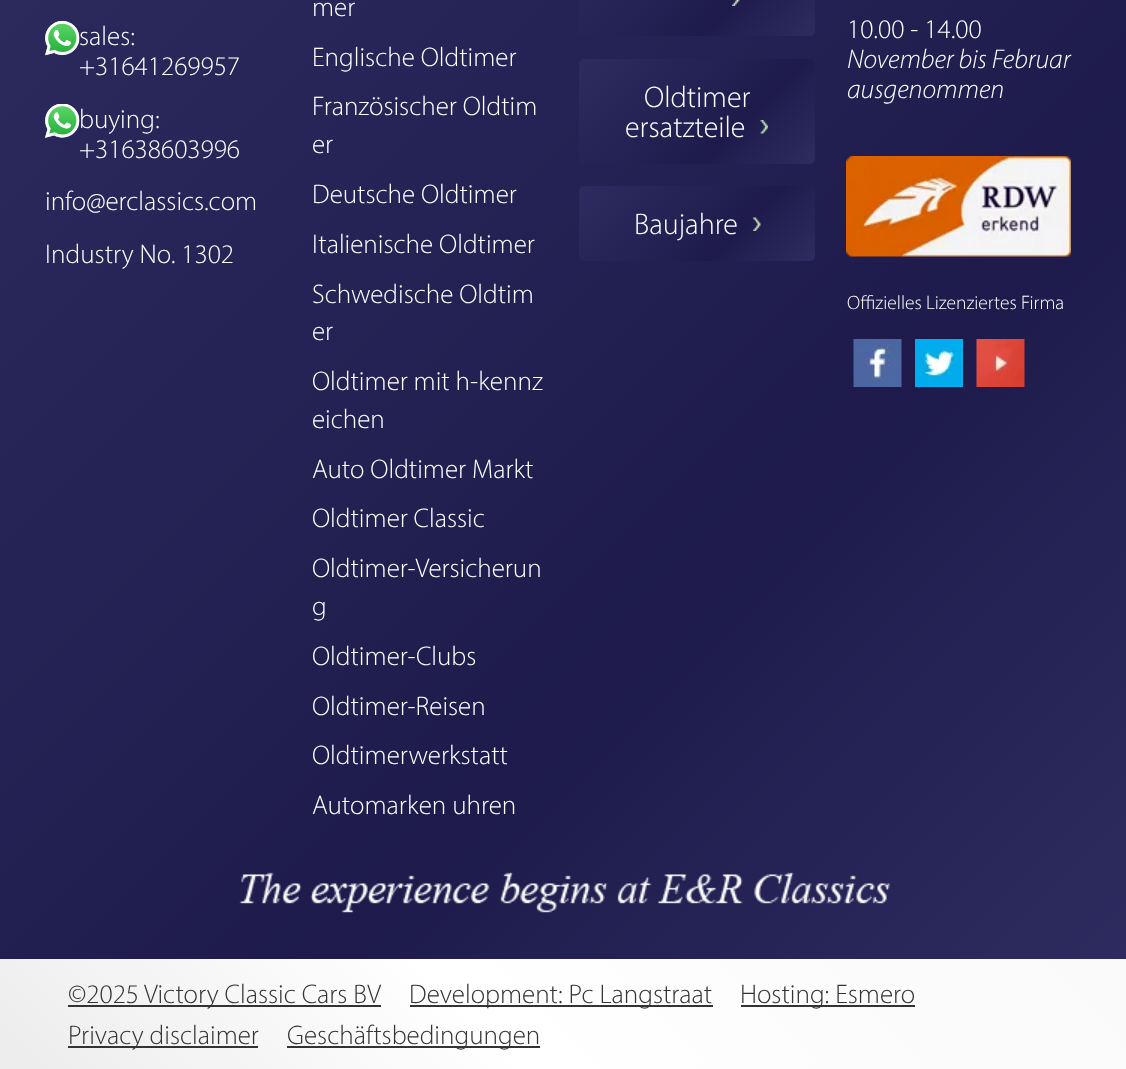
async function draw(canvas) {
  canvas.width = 1126
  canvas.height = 1069
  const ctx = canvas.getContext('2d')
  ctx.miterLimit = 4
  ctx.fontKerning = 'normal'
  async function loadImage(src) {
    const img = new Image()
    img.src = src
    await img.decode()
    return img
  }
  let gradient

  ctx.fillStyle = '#fff'
  ctx.fillRect(0, 0, 1126, 1069)
  gradient = ctx.createLinearGradient(-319, 750, 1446, -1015)
  gradient.addColorStop(0, '#ececec')
  gradient.addColorStop(0.15, '#fff')
  gradient.addColorStop(0.65, '#f1f1f1')
  gradient.addColorStop(0.8, '#f1f1f1')
  gradient.addColorStop(1, '#fff')
  ctx.fillStyle = gradient
  ctx.fillRect(0, 959, 1126, 110)
  gradient = ctx.createLinearGradient(-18, -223, 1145, 940)
  gradient.addColorStop(0, '#2e2b60')
  gradient.addColorStop(0.66, '#1e1b4c')
  gradient.addColorStop(1, '#2e2b60')
  ctx.fillStyle = gradient
  ctx.fillRect(0, 0, 1126, 959)
  ctx.drawImage(await loadImage('image0.png'), 45, 21, 35, 35)
  ctx.font = '300 27px Myriad'
  ctx.fillStyle = '#fff'
  ctx.fillText('sales:', 79, 45)
  ctx.fillText('+31641269957', 79, 75)
  ctx.drawImage(await loadImage('image1.png'), 45, 104, 35, 34)
  ctx.fillText('buying:', 79, 128)
  ctx.fillText('+31638603996', 79, 158)
  ctx.fillText('info@erclassics.com', 45, 210)
  ctx.fillText('Industry No. 1302', 45, 263)
  ctx.fillText('mer', 312, 16)
  ctx.fillText('Englische Oldtimer', 312, 66)
  ctx.fillText('Französischer Oldtim', 312, 115)
  ctx.fillText('er', 312, 153)
  ctx.fillText('Deutsche Oldtimer', 312, 203)
  ctx.fillText('Italienische Oldtimer', 312, 253)
  ctx.fillText('Schwedische Oldtim', 312, 303)
  ctx.fillText('er', 312, 340)
  ctx.fillText('Oldtimer mit h-kennz', 312, 390)
  ctx.fillText('eichen', 312, 428)
  ctx.fillText('Auto Oldtimer Markt', 312, 478)
  ctx.fillText('Oldtimer Classic', 312, 527)
  ctx.fillText('Oldtimer-Versicherun', 312, 577)
  ctx.fillText('g', 312, 615)
  ctx.fillText('Oldtimer-Clubs', 312, 665)
  ctx.fillText('Oldtimer-Reisen', 312, 715)
  ctx.fillText('Oldtimerwerkstatt', 312, 764)
  ctx.fillText('Automarken uhren', 312, 814)
  gradient = ctx.createLinearGradient(612, -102, 782, 69)
  gradient.addColorStop(0, '#2e2b60')
  gradient.addColorStop(0.66, '#1e1b4c')
  gradient.addColorStop(1, '#2e2b60')
  ctx.fillStyle = gradient
  ctx.beginPath()
  ctx.roundRect(579, -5, 236, 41, 5)
  ctx.fill()
  ctx.drawImage(await loadImage('image2.png'), 732, 0, 8, 6)
  gradient = ctx.createLinearGradient(612, 26, 782, 196)
  gradient.addColorStop(0, '#2e2b60')
  gradient.addColorStop(0.66, '#1e1b4c')
  gradient.addColorStop(1, '#2e2b60')
  ctx.fillStyle = gradient
  ctx.beginPath()
  ctx.roundRect(579, 59, 236, 105, 5)
  ctx.fill()
  ctx.font = '300 30px Myriad'
  ctx.fillStyle = '#fff'
  ctx.fillText('Oldtimer', 644, 107)
  ctx.fillText('ersatzteile', 625, 137)
  ctx.drawImage(await loadImage('image3.png'), 760, 120, 8, 14)
  gradient = ctx.createLinearGradient(619, 146, 774, 301)
  gradient.addColorStop(0, '#2e2b60')
  gradient.addColorStop(0.66, '#1e1b4c')
  gradient.addColorStop(1, '#2e2b60')
  ctx.fillStyle = gradient
  ctx.beginPath()
  ctx.roundRect(579, 186, 236, 75, 5)
  ctx.fill()
  ctx.fillStyle = '#fff'
  ctx.fillText('Baujahre', 634, 234)
  ctx.drawImage(await loadImage('image4.png'), 753, 217, 8, 14)
  ctx.font = '300 27px Myriad'
  ctx.fillText('10.00 - 14.00', 847, 38)
  ctx.font = 'italic 300 27px Myriad'
  ctx.fillText('November bis Februar', 847, 68)
  ctx.fillText('ausgenommen', 847, 98)
  ctx.drawImage(await loadImage('image5.png'), 846, 156, 225, 101)
  ctx.font = '300 19.5px Myriad'
  ctx.fillText('Offizielles Lizenziertes Firma', 847, 309)
  ctx.drawImage(await loadImage('image6.png'), 853, 339, 49, 48)
  ctx.drawImage(await loadImage('image7.png'), 915, 339, 48, 48)
  ctx.drawImage(await loadImage('image8.png'), 976, 339, 49, 48)
  ctx.drawImage(await loadImage('image9.png'), 239, 872, 651, 41)
  ctx.fillStyle = '#333'
  ctx.fillRect(68, 1005, 313, 2)
  ctx.font = '300 27px Myriad'
  ctx.fillText('©2025 Victory Classic Cars BV', 68, 1003)
  ctx.fillRect(410, 1005, 303, 2)
  ctx.fillText('Development: Pc Langstraat', 409, 1003)
  ctx.fillRect(741, 1005, 174, 2)
  ctx.fillText('Hosting: Esmero', 740, 1003)
  ctx.fillRect(68, 1046, 190, 2)
  ctx.fillText('Privacy disclaimer', 68, 1044)
  ctx.fillRect(287, 1046, 253, 2)
  ctx.fillText('Geschäftsbedingungen', 287, 1044)
}

draw(document.querySelector('canvas'))
